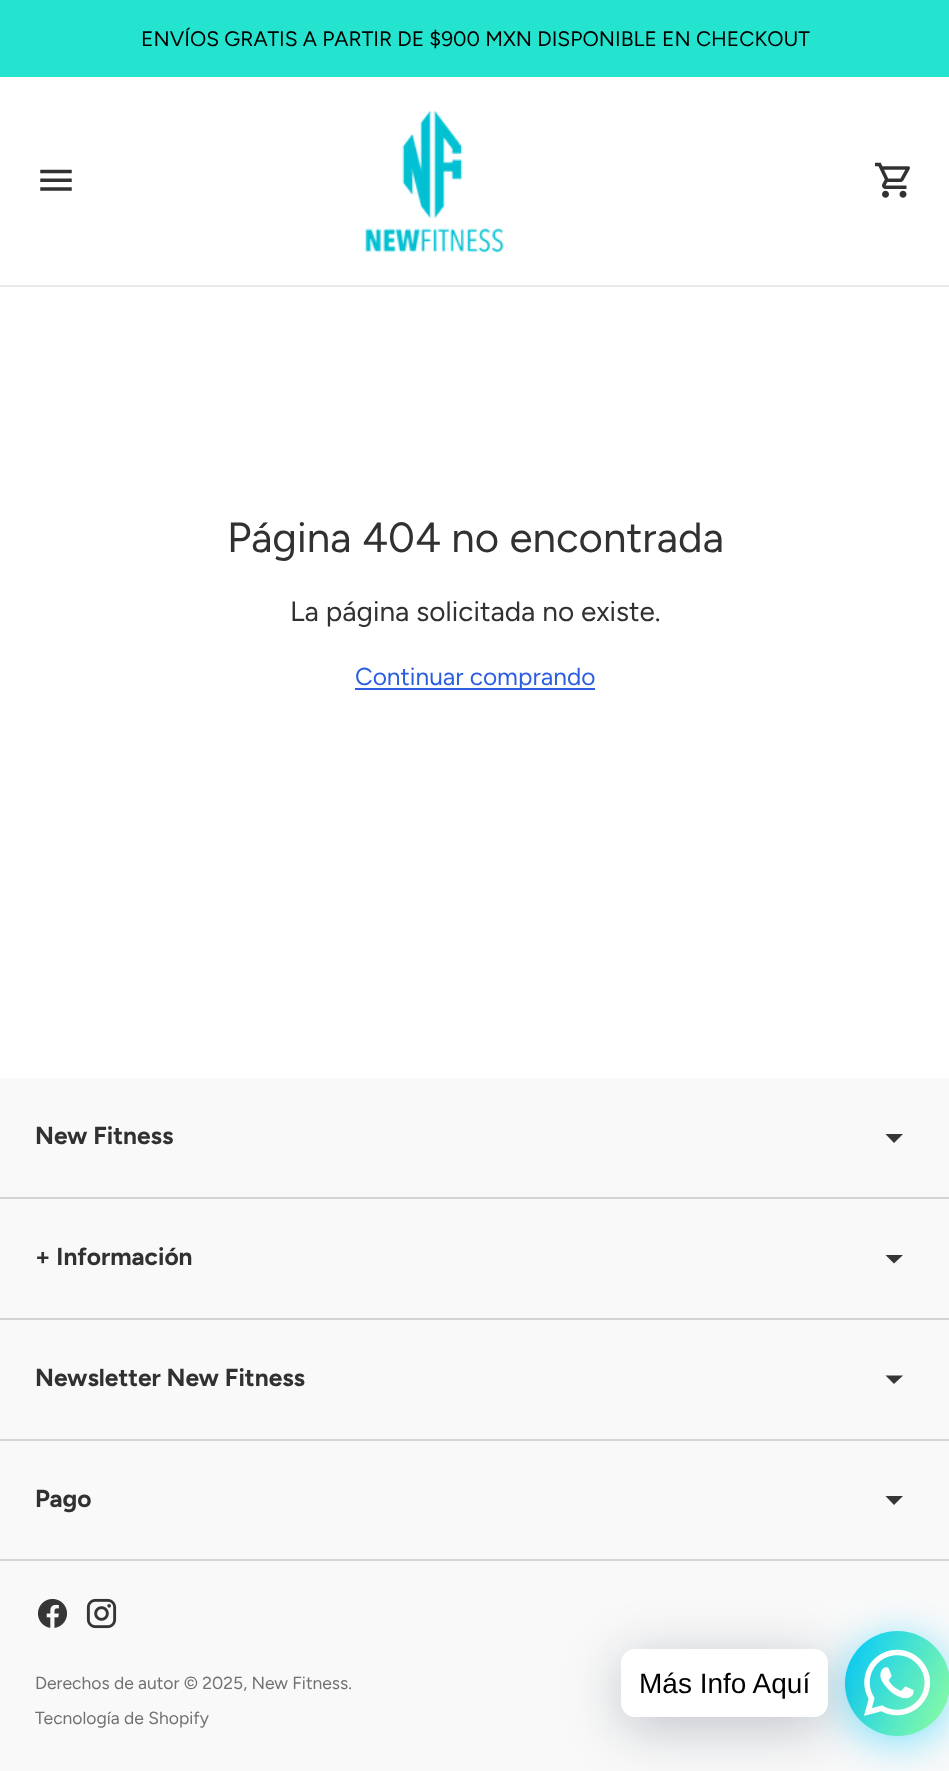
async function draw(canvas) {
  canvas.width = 949
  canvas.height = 1771
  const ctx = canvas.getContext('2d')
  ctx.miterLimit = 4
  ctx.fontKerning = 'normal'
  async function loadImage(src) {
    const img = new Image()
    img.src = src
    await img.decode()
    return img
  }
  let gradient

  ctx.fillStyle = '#fff'
  ctx.fillRect(0, 0, 949, 1771)
  ctx.fillStyle = '#24e4cf'
  ctx.fillRect(0, 0, 949, 77)
  ctx.font = '21px Figtree'
  ctx.fillStyle = '#000'
  ctx.fillText('ENVÍOS GRATIS A PARTIR DE $900 MXN DISPONIBLE EN CHECKOUT', 141, 46)
  ctx.fillStyle = '#eaeaea'
  ctx.fillRect(0, 285, 949, 2)
  ctx.drawImage(await loadImage('image0.png'), 40, 169, 32, 22)
  ctx.drawImage(await loadImage('image1.png'), 365, 110, 139, 143)
  ctx.drawImage(await loadImage('image2.png'), 875, 162, 35, 36)
  ctx.font = '42px Figtree'
  ctx.fillStyle = '#313131'
  ctx.fillText('Página 404 no encontrada', 227, 552)
  ctx.font = '28px Figtree'
  ctx.fillText('La página solicitada no existe.', 290, 621)
  ctx.fillStyle = '#2a5ddf'
  ctx.fillRect(355, 688, 240, 2)
  ctx.font = '24.5px Figtree'
  ctx.fillText('Continuar comprando', 355, 685)
  ctx.fillStyle = '#f9f9f9'
  ctx.fillRect(0, 1078, 949, 693)
  ctx.fillStyle = '#d4d4d4'
  ctx.fillRect(0, 1197, 949, 2)
  ctx.font = 'bold 24.5px Figtree'
  ctx.fillStyle = '#313131'
  ctx.fillText('New Fitness', 35, 1144)
  ctx.fillStyle = '#363636'
  ctx.beginPath()
  ctx.moveTo(885.5, 1134)
  ctx.lineTo(894, 1143)
  ctx.lineTo(903, 1134)
  ctx.closePath()
  ctx.fill()
  ctx.fillStyle = '#d4d4d4'
  ctx.fillRect(0, 1318, 949, 2)
  ctx.fillStyle = '#313131'
  ctx.fillText('+ Información', 35, 1265)
  ctx.fillStyle = '#363636'
  ctx.beginPath()
  ctx.moveTo(885.5, 1255)
  ctx.lineTo(894, 1263.5)
  ctx.lineTo(903, 1255)
  ctx.closePath()
  ctx.fill()
  ctx.fillStyle = '#d4d4d4'
  ctx.fillRect(0, 1439, 949, 2)
  ctx.fillStyle = '#313131'
  ctx.fillText('Newsletter New Fitness', 35, 1386)
  ctx.fillStyle = '#363636'
  ctx.beginPath()
  ctx.moveTo(885.5, 1375.5)
  ctx.lineTo(894, 1384)
  ctx.lineTo(903, 1375.5)
  ctx.closePath()
  ctx.fill()
  ctx.fillStyle = '#d4d4d4'
  ctx.fillRect(0, 1559, 949, 2)
  ctx.fillStyle = '#313131'
  ctx.fillText('Pago', 35, 1507)
  ctx.fillStyle = '#363636'
  ctx.beginPath()
  ctx.moveTo(885.5, 1496)
  ctx.lineTo(894, 1505)
  ctx.lineTo(903, 1496)
  ctx.closePath()
  ctx.fill()
  ctx.drawImage(await loadImage('image3.png'), 37, 1598, 31, 30)
  ctx.drawImage(await loadImage('image4.png'), 86, 1598, 31, 31)
  ctx.font = '17.5px Figtree'
  ctx.fillStyle = '#717171'
  ctx.fillText('Derechos de autor © 2025, New Fitness.', 35, 1689)
  ctx.fillText('Tecnología de Shopify', 35, 1724)
  ctx.fillStyle = '#00c9ff80'
  ctx.filter = 'blur(21px)'
  ctx.beginPath()
  ctx.roundRect(845, 1638, 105, 105, 52.5)
  ctx.fill()
  ctx.filter = 'none'
  gradient = ctx.createLinearGradient(835, 1654, 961, 1713)
  gradient.addColorStop(0, '#00c9ff')
  gradient.addColorStop(1, '#92fe9d')
  ctx.fillStyle = gradient
  ctx.beginPath()
  ctx.arc(897.5, 1683.5, 52.5, 0, 2 * Math.PI)
  ctx.fill()
  ctx.fillStyle = '#00122e3d'
  ctx.filter = 'blur(28px)'
  ctx.beginPath()
  ctx.roundRect(621, 1659, 207, 68, 14)
  ctx.fill()
  ctx.filter = 'none'
  ctx.fillStyle = '#fff'
  ctx.beginPath()
  ctx.roundRect(621, 1649, 207, 68, 14)
  ctx.fill()
  ctx.font = '28px Liberation Sans'
  ctx.fillStyle = '#000'
  ctx.fillText('Más Info Aquí', 639, 1693)
  ctx.drawImage(await loadImage('image5.png'), 864, 1649, 67, 67)
}

draw(document.querySelector('canvas'))
